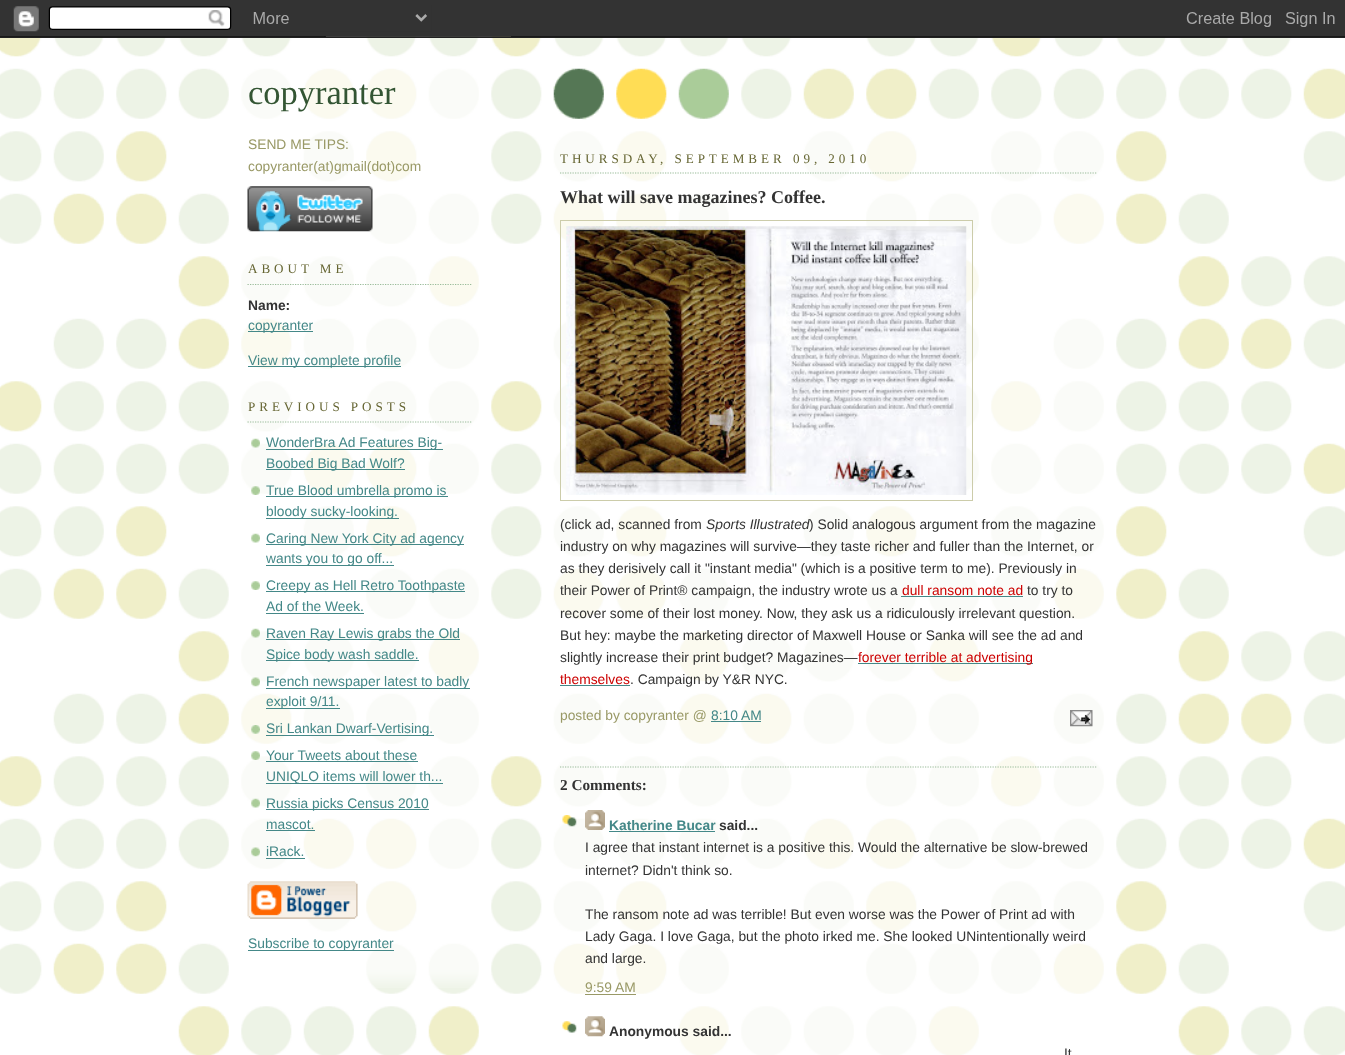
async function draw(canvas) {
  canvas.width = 1345
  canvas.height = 1055
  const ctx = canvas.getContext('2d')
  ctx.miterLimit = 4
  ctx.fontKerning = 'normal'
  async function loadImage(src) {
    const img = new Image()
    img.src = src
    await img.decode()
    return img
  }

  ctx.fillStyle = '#fff'
  ctx.fillRect(0, 0, 1345, 1055)
  ctx.drawImage(await loadImage('image0.png'), 0, 36, 1345, 1019)
  ctx.drawImage(await loadImage('image1.png'), 0, 0, 1345, 38)
  ctx.drawImage(await loadImage('image2.png'), 553, 68, 176, 52)
  ctx.drawImage(await loadImage('image3.png'), 366, 970, 113, 18)
  ctx.drawImage(await loadImage('image4.png'), 241, 68, 238, 902)
  ctx.font = '34.5px Liberation Serif'
  ctx.fillStyle = '#353'
  ctx.fillText('copyranter', 248, 104)
  ctx.font = '13.8px Liberation Sans'
  ctx.fillStyle = '#996'
  ctx.fillText('SEND ME TIPS:', 248, 149)
  ctx.fillText('copyranter(at)gmail(dot)com', 248, 171)
  ctx.drawImage(await loadImage('image5.png'), 247, 186, 126, 46)
  ctx.beginPath()
  ctx.moveTo(247.5, 284.5)
  ctx.lineTo(472.5, 284.5)
  ctx.strokeStyle = '#9b9'
  ctx.lineWidth = 1.2
  ctx.setLineDash([1.25, 1.25])
  ctx.stroke()
  ctx.letterSpacing = '3.95px'
  ctx.font = '13.1px Liberation Serif'
  ctx.fillStyle = '#663'
  ctx.fillText('ABOUT ME', 248, 273)
  ctx.letterSpacing = '0px'
  ctx.font = 'bold 13.8px Liberation Sans'
  ctx.fillStyle = '#333'
  ctx.fillText('Name:', 248, 310)
  ctx.fillStyle = '#488'
  ctx.fillRect(248, 331, 65, 1)
  ctx.font = '13.8px Liberation Sans'
  ctx.fillText('copyranter', 248, 330)
  ctx.fillRect(248, 366, 153, 1)
  ctx.fillText('View my complete profile', 248, 365)
  ctx.beginPath()
  ctx.moveTo(247.5, 422)
  ctx.lineTo(472.5, 422)
  ctx.stroke()
  ctx.letterSpacing = '3.95px'
  ctx.font = '13.1px Liberation Serif'
  ctx.fillStyle = '#663'
  ctx.fillText('PREVIOUS POSTS', 248, 411)
  ctx.drawImage(await loadImage('image6.png'), 251, 438, 9, 10)
  ctx.fillStyle = '#488'
  ctx.fillRect(266, 449, 177, 1)
  ctx.letterSpacing = '0px'
  ctx.font = '13.8px Liberation Sans'
  ctx.fillText('WonderBra Ad Features Big-', 266, 447)
  ctx.fillRect(266, 469, 139, 1)
  ctx.fillText('Boobed Big Bad Wolf?', 266, 468)
  ctx.drawImage(await loadImage('image7.png'), 251, 486, 9, 9)
  ctx.fillRect(266, 496, 182, 1)
  ctx.fillText('True Blood umbrella promo is', 266, 495)
  ctx.fillRect(266, 518, 133, 1)
  ctx.fillText('bloody sucky-looking.', 266, 516)
  ctx.drawImage(await loadImage('image8.png'), 251, 533, 9, 10)
  ctx.fillRect(266, 544, 198, 1)
  ctx.fillText('Caring New York City ad agency', 266, 543)
  ctx.fillRect(266, 565, 128, 1)
  ctx.fillText('wants you to go off...', 266, 563)
  ctx.drawImage(await loadImage('image9.png'), 251, 581, 9, 9)
  ctx.fillRect(266, 591, 199, 1)
  ctx.fillText('Creepy as Hell Retro Toothpaste', 266, 590)
  ctx.fillText('Ad of the Week.', 266, 611)
  ctx.fillRect(266, 613, 98, 1)
  ctx.drawImage(await loadImage('image10.png'), 251, 628, 9, 10)
  ctx.fillRect(266, 639, 194, 1)
  ctx.fillText('Raven Ray Lewis grabs the Old', 266, 638)
  ctx.fillRect(266, 660, 153, 1)
  ctx.fillText('Spice body wash saddle.', 266, 659)
  ctx.drawImage(await loadImage('image11.png'), 251, 677, 9, 10)
  ctx.fillRect(266, 688, 204, 1)
  ctx.fillText('French newspaper latest to badly', 266, 686)
  ctx.fillRect(266, 708, 74, 1)
  ctx.fillText('exploit 9/11.', 266, 706)
  ctx.drawImage(await loadImage('image12.png'), 251, 725, 9, 9)
  ctx.fillRect(266, 735, 168, 1)
  ctx.fillText('Sri Lankan Dwarf-Vertising.', 266, 733)
  ctx.drawImage(await loadImage('image13.png'), 251, 751, 9, 9)
  ctx.fillText('Your Tweets about these', 266, 760)
  ctx.fillRect(266, 761, 152, 1)
  ctx.fillRect(266, 783, 177, 1)
  ctx.fillText('UNIQLO items will lower th...', 266, 781)
  ctx.drawImage(await loadImage('image14.png'), 251, 798, 9, 10)
  ctx.fillRect(266, 809, 163, 1)
  ctx.fillText('Russia picks Census 2010', 266, 808)
  ctx.fillText('mascot.', 266, 829)
  ctx.fillRect(266, 830, 49, 1)
  ctx.drawImage(await loadImage('image15.png'), 251, 847, 9, 10)
  ctx.fillText('iRack.', 266, 856)
  ctx.fillRect(266, 858, 39, 1)
  ctx.drawImage(await loadImage('image16.png'), 247, 881, 111, 38)
  ctx.fillRect(248, 950, 146, 1)
  ctx.fillText('Subscribe to copyranter', 248, 948)
  ctx.drawImage(await loadImage('image17.png'), 553, 131, 551, 924)
  ctx.beginPath()
  ctx.moveTo(560, 173)
  ctx.lineTo(1097.5, 173)
  ctx.stroke()
  ctx.letterSpacing = '3.95px'
  ctx.font = '13.1px Liberation Serif'
  ctx.fillStyle = '#663'
  ctx.fillText('THURSDAY, SEPTEMBER 09, 2010', 560, 163)
  ctx.letterSpacing = '0px'
  ctx.font = 'bold 18px Liberation Serif'
  ctx.fillStyle = '#333'
  ctx.fillText('What will save magazines? Coffee.', 560, 203)
  ctx.strokeStyle = '#cca'
  ctx.lineWidth = 1
  ctx.setLineDash([])
  ctx.strokeRect(560.5, 220.5, 412, 280)
  ctx.drawImage(await loadImage('image18.png'), 566, 226, 401, 269)
  ctx.font = '13.8px Liberation Sans'
  ctx.fillText('(click ad, scanned from', 560, 529)
  ctx.font = 'italic 13.8px Liberation Sans'
  ctx.fillText('Sports Illustrated', 706, 529)
  ctx.font = '13.8px Liberation Sans'
  ctx.fillText(') Solid analogous argument from the magazine', 809, 529)
  ctx.fillText('industry on why magazines will survive—they taste richer and fuller than the Internet, or', 560, 551)
  ctx.fillText('as they derisively call it "instant media" (which is a positive term to me). Previously in', 560, 573)
  ctx.fillText('their Power of Print® campaign, the industry wrote us a', 560, 595)
  ctx.fillStyle = '#c00'
  ctx.fillText('dull ransom note ad', 902, 595)
  ctx.fillStyle = '#488'
  ctx.fillRect(901, 596, 122, 1)
  ctx.fillStyle = '#333'
  ctx.fillText('to try to', 1027, 595)
  ctx.fillText('recover some of their lost money. Now, they ask us a ridiculously irrelevant question.', 560, 618)
  ctx.fillText('But hey: maybe the marketing director of Maxwell House or Sanka will see the ad and', 560, 640)
  ctx.fillText('slightly increase their print budget? Magazines—', 560, 662)
  ctx.fillStyle = '#488'
  ctx.fillRect(858, 663, 175, 1)
  ctx.fillStyle = '#c00'
  ctx.fillText('forever terrible at advertising', 858, 662)
  ctx.fillText('themselves', 560, 684)
  ctx.fillStyle = '#488'
  ctx.fillRect(560, 685, 70, 1)
  ctx.fillStyle = '#333'
  ctx.fillText('. Campaign by Y&R NYC.', 630, 684)
  ctx.fillStyle = '#996'
  ctx.fillText('posted by copyranter @', 560, 720)
  ctx.fillStyle = '#488'
  ctx.fillText('8:10 AM', 711, 720)
  ctx.fillRect(711, 721, 50, 1)
  ctx.drawImage(await loadImage('image19.png'), 1070, 710, 23, 17)
  ctx.beginPath()
  ctx.moveTo(560, 767)
  ctx.lineTo(1097.5, 767)
  ctx.strokeStyle = '#9b9'
  ctx.lineWidth = 1.2
  ctx.setLineDash([1.25, 1.25])
  ctx.stroke()
  ctx.font = 'bold 15.25px Liberation Serif'
  ctx.fillStyle = '#333'
  ctx.fillText('2 Comments:', 560, 790)
  ctx.drawImage(await loadImage('image20.png'), 562, 815, 15, 12)
  ctx.drawImage(await loadImage('image21.png'), 585, 810, 20, 20)
  ctx.font = 'bold 13.8px Liberation Sans'
  ctx.fillStyle = '#488'
  ctx.fillText('Katherine Bucar', 609, 830)
  ctx.fillRect(609, 831, 106, 1)
  ctx.fillStyle = '#333'
  ctx.fillText('said...', 719, 830)
  ctx.font = '13.8px Liberation Sans'
  ctx.fillText('I agree that instant internet is a positive this. Would the alternative be slow-brewed', 585, 852)
  ctx.fillText('internet? Didn\'t think so.', 585, 875)
  ctx.fillText('The ransom note ad was terrible! But even worse was the Power of Print ad with', 585, 919)
  ctx.fillText('Lady Gaga. I love Gaga, but the photo irked me. She looked UNintentionally weird', 585, 941)
  ctx.fillText('and large.', 585, 963)
  ctx.fillStyle = '#996'
  ctx.fillText('9:59 AM', 585, 992)
  ctx.fillRect(585, 994, 51, 1)
  ctx.drawImage(await loadImage('image22.png'), 562, 1021, 15, 12)
  ctx.drawImage(await loadImage('image23.png'), 585, 1016, 20, 21)
  ctx.font = 'bold 13.8px Liberation Sans'
  ctx.fillStyle = '#333'
  ctx.fillText('Anonymous said...', 609, 1036)
  ctx.font = '13.8px Liberation Sans'
  ctx.fillText('It', 1064, 1058)
}

draw(document.querySelector('canvas'))
